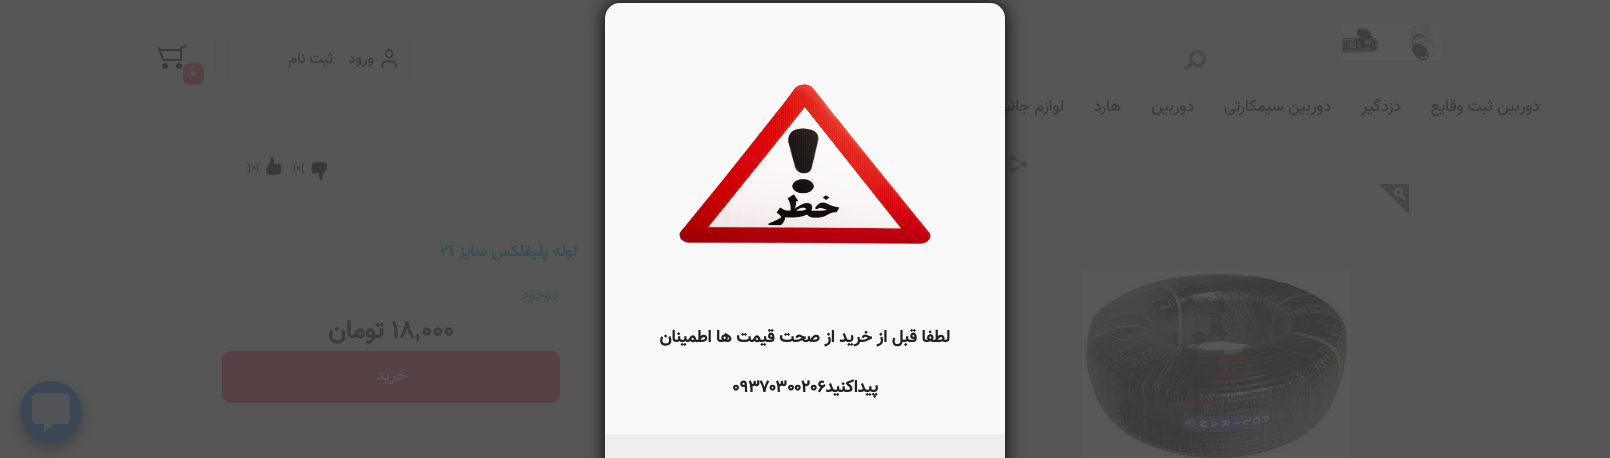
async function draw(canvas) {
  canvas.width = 1610
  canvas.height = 458
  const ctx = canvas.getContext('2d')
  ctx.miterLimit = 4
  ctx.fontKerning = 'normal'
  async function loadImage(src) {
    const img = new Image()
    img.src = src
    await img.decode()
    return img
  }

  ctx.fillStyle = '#575656'
  ctx.fillRect(0, 0, 1610, 458)
  ctx.drawImage(await loadImage('image0.png'), 1342, 24, 99, 36)
  ctx.drawImage(await loadImage('image1.png'), 1183, 49, 24, 22)
  ctx.beginPath()
  ctx.roundRect(227.5, 36.5, 182, 47, 3.5)
  ctx.strokeStyle = '#545454'
  ctx.stroke()
  ctx.drawImage(await loadImage('image2.png'), 381, 48, 16, 21)
  ctx.direction = 'rtl'
  ctx.font = '500 15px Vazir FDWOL'
  ctx.fillStyle = '#3d3d3d'
  ctx.fillText('ورود', 374, 63)
  ctx.fillText('ثبت نام', 333, 63)
  ctx.fillStyle = '#545454'
  ctx.fillRect(215, 41, 1, 33)
  ctx.drawImage(await loadImage('image3.png'), 158, 45, 28, 24)
  ctx.fillStyle = '#564043'
  ctx.beginPath()
  ctx.roundRect(183, 63, 21, 22, 7)
  ctx.fill()
  ctx.direction = 'ltr'
  ctx.fillStyle = '#585858'
  ctx.fillText('0', 190, 77)
  ctx.direction = 'rtl'
  ctx.font = '500 16px Vazir FDWOL'
  ctx.fillStyle = '#3d3d3d'
  ctx.fillText('دوربین ثبت وقایع', 1540, 111)
  ctx.fillText('دزدگیر', 1401, 111)
  ctx.fillText('دوربین سیمکارتی', 1331, 111)
  ctx.fillText('دوربین', 1194, 111)
  ctx.fillText('هارد', 1121, 111)
  ctx.fillText('لوازم جانبی', 1064, 111)
  ctx.drawImage(await loadImage('image4.png'), 1010, 154, 18, 20)
  ctx.drawImage(await loadImage('image5.png'), 1379, 184, 30, 30)
  ctx.drawImage(await loadImage('image6.png'), 1082, 271, 269, 187)
  ctx.drawImage(await loadImage('image7.png'), 311, 162, 16, 18)
  ctx.direction = 'ltr'
  ctx.font = '12px Liberation Sans'
  ctx.fillText('(', 301, 171)
  ctx.font = '500 12px Vazir FDWOL'
  ctx.fillText('0', 296, 171)
  ctx.font = '12px Liberation Sans'
  ctx.fillText(')', 292, 171)
  ctx.drawImage(await loadImage('image8.png'), 266, 157, 16, 18)
  ctx.fillText('(', 256, 171)
  ctx.font = '500 12px Vazir FDWOL'
  ctx.fillText('0', 251, 171)
  ctx.font = '12px Liberation Sans'
  ctx.fillText(')', 247, 171)
  ctx.direction = 'rtl'
  ctx.font = 'bold 16px Vazir FDWOL'
  ctx.fillStyle = '#395053'
  ctx.fillText('لوله پلیفلکس سایز', 577, 256)
  ctx.direction = 'ltr'
  ctx.fillText('21', 440, 256)
  ctx.direction = 'rtl'
  ctx.font = 'italic 500 15px Vazir FDWOL'
  ctx.fillStyle = '#415053'
  ctx.fillText('موجود', 558, 299)
  ctx.direction = 'ltr'
  ctx.font = 'bold 25px Vazir FDWOL'
  ctx.fillStyle = '#3d3d3d'
  ctx.fillText('18 000', 391, 338)
  ctx.direction = 'rtl'
  ctx.fillText('تومان', 384, 338)
  ctx.direction = 'ltr'
  ctx.font = 'bold 25px Liberation Sans'
  ctx.fillText(',', 414, 338)
  ctx.fillStyle = '#564043'
  ctx.beginPath()
  ctx.roundRect(222.5, 351.5, 337, 51, 8.5)
  ctx.fill()
  ctx.strokeStyle = '#564043'
  ctx.stroke()
  ctx.direction = 'rtl'
  ctx.font = '500 16px Vazir FDWOL'
  ctx.fillStyle = '#585858'
  ctx.fillText('خرید', 407, 380)
  ctx.fillStyle = '#000'
  ctx.filter = 'blur(9px)'
  ctx.beginPath()
  ctx.roundRect(605, 3, 400, 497, 15)
  ctx.fill()
  ctx.filter = 'none'
  ctx.fillStyle = '#f9f9f9'
  ctx.beginPath()
  ctx.roundRect(605, 3, 400, 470, 15)
  ctx.fill()
  ctx.drawImage(await loadImage('image9.png'), 679, 84, 252, 161)
  ctx.font = 'bold 17px Vazir FDWOL'
  ctx.fillStyle = '#222'
  ctx.fillText('لطفا قبل از خرید از صحت قیمت ها اطمینان', 950, 342)
  ctx.fillText('پیداکنید', 878, 392)
  ctx.direction = 'ltr'
  ctx.fillText('۰۹۳۷۰۳۰۰۲۰۶', 732, 392)
  ctx.fillStyle = '#eee'
  ctx.fillRect(605, 434, 400, 24)
  ctx.fillStyle = '#3939397a'
  ctx.filter = 'blur(4px)'
  ctx.beginPath()
  ctx.roundRect(18, 385, 66, 66, 33)
  ctx.fill()
  ctx.filter = 'none'
  ctx.fillStyle = '#3c4755'
  ctx.beginPath()
  ctx.arc(51, 412, 31, 0, 2 * Math.PI)
  ctx.fill()
  ctx.drawImage(await loadImage('image10.png'), 32, 393, 38, 38)
}

draw(document.querySelector('canvas'))
